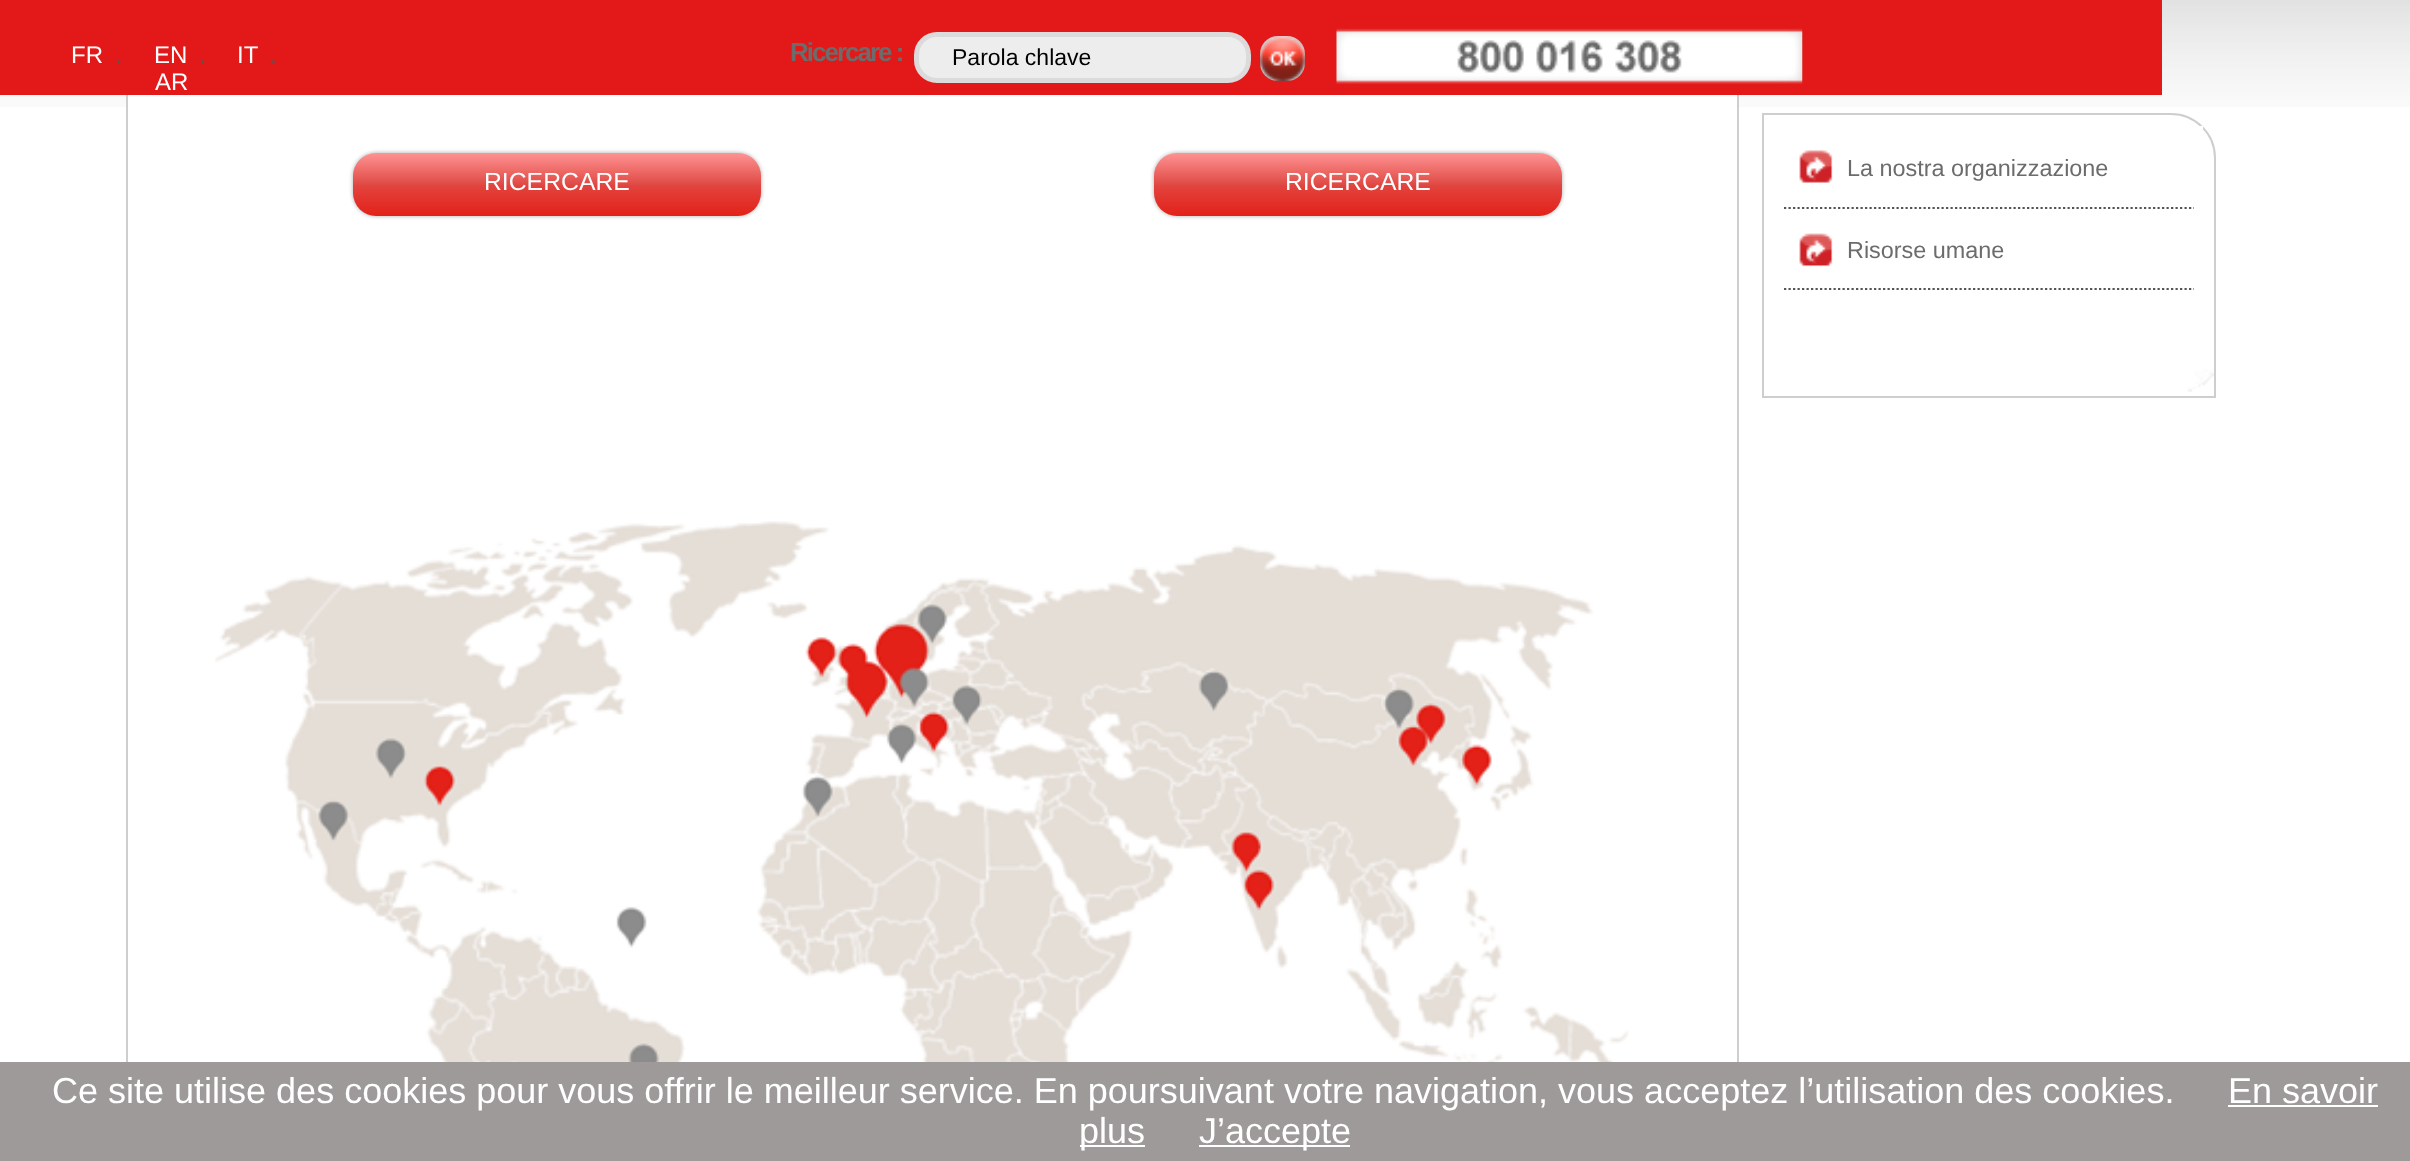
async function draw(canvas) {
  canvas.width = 2410
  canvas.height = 1161
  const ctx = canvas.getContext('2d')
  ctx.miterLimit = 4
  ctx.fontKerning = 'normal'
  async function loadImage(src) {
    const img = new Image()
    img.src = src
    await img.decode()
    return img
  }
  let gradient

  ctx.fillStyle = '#fff'
  ctx.fillRect(0, 0, 2410, 1161)
  ctx.drawImage(await loadImage('image0.png'), 0, 0, 2410, 107)
  ctx.fillRect(128, 95, 1609, 12)
  ctx.strokeStyle = '#cecece'
  ctx.lineWidth = 2
  ctx.strokeRect(127, -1, 1611, 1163)
  ctx.fillStyle = '#e31818'
  ctx.fillRect(0, 0, 2162, 95)
  ctx.font = '24px Liberation Sans'
  ctx.fillStyle = '#fff'
  ctx.fillText('FR', 71, 63)
  ctx.fillStyle = '#555'
  ctx.fillText('.', 115, 63)
  ctx.fillStyle = '#fff'
  ctx.fillText('EN', 154, 63)
  ctx.fillStyle = '#555'
  ctx.fillText('.', 199, 63)
  ctx.fillStyle = '#fff'
  ctx.fillText('IT', 237, 63)
  ctx.fillStyle = '#555'
  ctx.fillText('.', 270, 63)
  ctx.fillStyle = '#fff'
  ctx.fillText('AR', 155, 90)
  ctx.letterSpacing = '-2px'
  ctx.font = 'bold 26px Liberation Sans'
  ctx.fillStyle = '#6d6c6c'
  ctx.fillText('Ricercare :', 790, 61)
  ctx.fillStyle = '#ededed'
  ctx.beginPath()
  ctx.roundRect(916.5, 34.5, 332, 46, 20.5)
  ctx.fill()
  ctx.strokeStyle = '#dbdbdb'
  ctx.lineWidth = 5
  ctx.stroke()
  ctx.letterSpacing = '0px'
  ctx.font = '23px Liberation Sans'
  ctx.fillStyle = '#000'
  ctx.fillText('Parola chlave', 952, 65)
  ctx.drawImage(await loadImage('image1.png'), 1260, 36, 45, 45)
  ctx.drawImage(await loadImage('image2.png'), 1336, 28, 467, 56)
  ctx.fillStyle = '#aaa'
  ctx.filter = 'blur(2px)'
  ctx.beginPath()
  ctx.roundRect(353, 153, 408, 63, 23)
  ctx.fill()
  ctx.filter = 'none'
  gradient = ctx.createLinearGradient(557, 153, 557, 216)
  gradient.addColorStop(0, '#ff9393')
  gradient.addColorStop(0.5, '#e04a45')
  gradient.addColorStop(0.51, '#e2443f')
  gradient.addColorStop(1, '#e32118')
  ctx.fillStyle = gradient
  ctx.beginPath()
  ctx.roundRect(353, 153, 408, 63, 23)
  ctx.fill()
  ctx.font = '24.75px Liberation Sans'
  ctx.fillStyle = '#fff'
  ctx.fillText('RICERCARE', 484, 190)
  ctx.fillStyle = '#aaa'
  ctx.filter = 'blur(2px)'
  ctx.beginPath()
  ctx.roundRect(1154, 153, 408, 63, 23)
  ctx.fill()
  ctx.filter = 'none'
  gradient = ctx.createLinearGradient(1358, 153, 1358, 216)
  gradient.addColorStop(0, '#ff9393')
  gradient.addColorStop(0.5, '#e04a45')
  gradient.addColorStop(0.51, '#e2443f')
  gradient.addColorStop(1, '#e32118')
  ctx.fillStyle = gradient
  ctx.beginPath()
  ctx.roundRect(1154, 153, 408, 63, 23)
  ctx.fill()
  ctx.fillStyle = '#fff'
  ctx.fillText('RICERCARE', 1285, 190)
  ctx.drawImage(await loadImage('image3.png'), 215, 521, 1414, 541)
  ctx.drawImage(await loadImage('image4.png'), 2187, 369, 27, 23)
  ctx.beginPath()
  ctx.roundRect(1763, 114, 452, 283, [0, 44, 0, 0])
  ctx.strokeStyle = '#cecece'
  ctx.lineWidth = 2
  ctx.stroke()
  ctx.fillRect(2199, 126, 4, 4)
  ctx.drawImage(await loadImage('image5.png'), 1799, 150, 34, 33)
  ctx.beginPath()
  ctx.moveTo(1784, 208)
  ctx.lineTo(2194, 208)
  ctx.strokeStyle = '#555'
  ctx.lineWidth = 2.2
  ctx.setLineDash([2.25, 2.25])
  ctx.stroke()
  ctx.font = '23.4px Liberation Sans'
  ctx.fillStyle = '#6d6c6c'
  ctx.fillText('La nostra organizzazione', 1847, 176)
  ctx.drawImage(await loadImage('image6.png'), 1799, 233, 34, 34)
  ctx.beginPath()
  ctx.moveTo(1784, 289)
  ctx.lineTo(2194, 289)
  ctx.stroke()
  ctx.fillText('Risorse umane', 1847, 258)
  ctx.fillStyle = '#9e9a9a'
  ctx.fillRect(0, 1062, 2410, 99)
  ctx.font = '36px Liberation Sans'
  ctx.fillStyle = '#fff'
  ctx.fillText('Ce site utilise des cookies pour vous offrir le meilleur service. En poursuivant votre navigation, vous acceptez l’utilisation des cookies.', 52, 1103)
  ctx.fillText('En savoir', 2228, 1103)
  ctx.fillRect(2228, 1105, 150, 2)
  ctx.fillRect(1080, 1145, 65, 2)
  ctx.fillText('plus', 1079, 1143)
  ctx.fillRect(1199, 1145, 151, 2)
  ctx.fillText('J’accepte', 1199, 1143)
}

draw(document.querySelector('canvas'))
